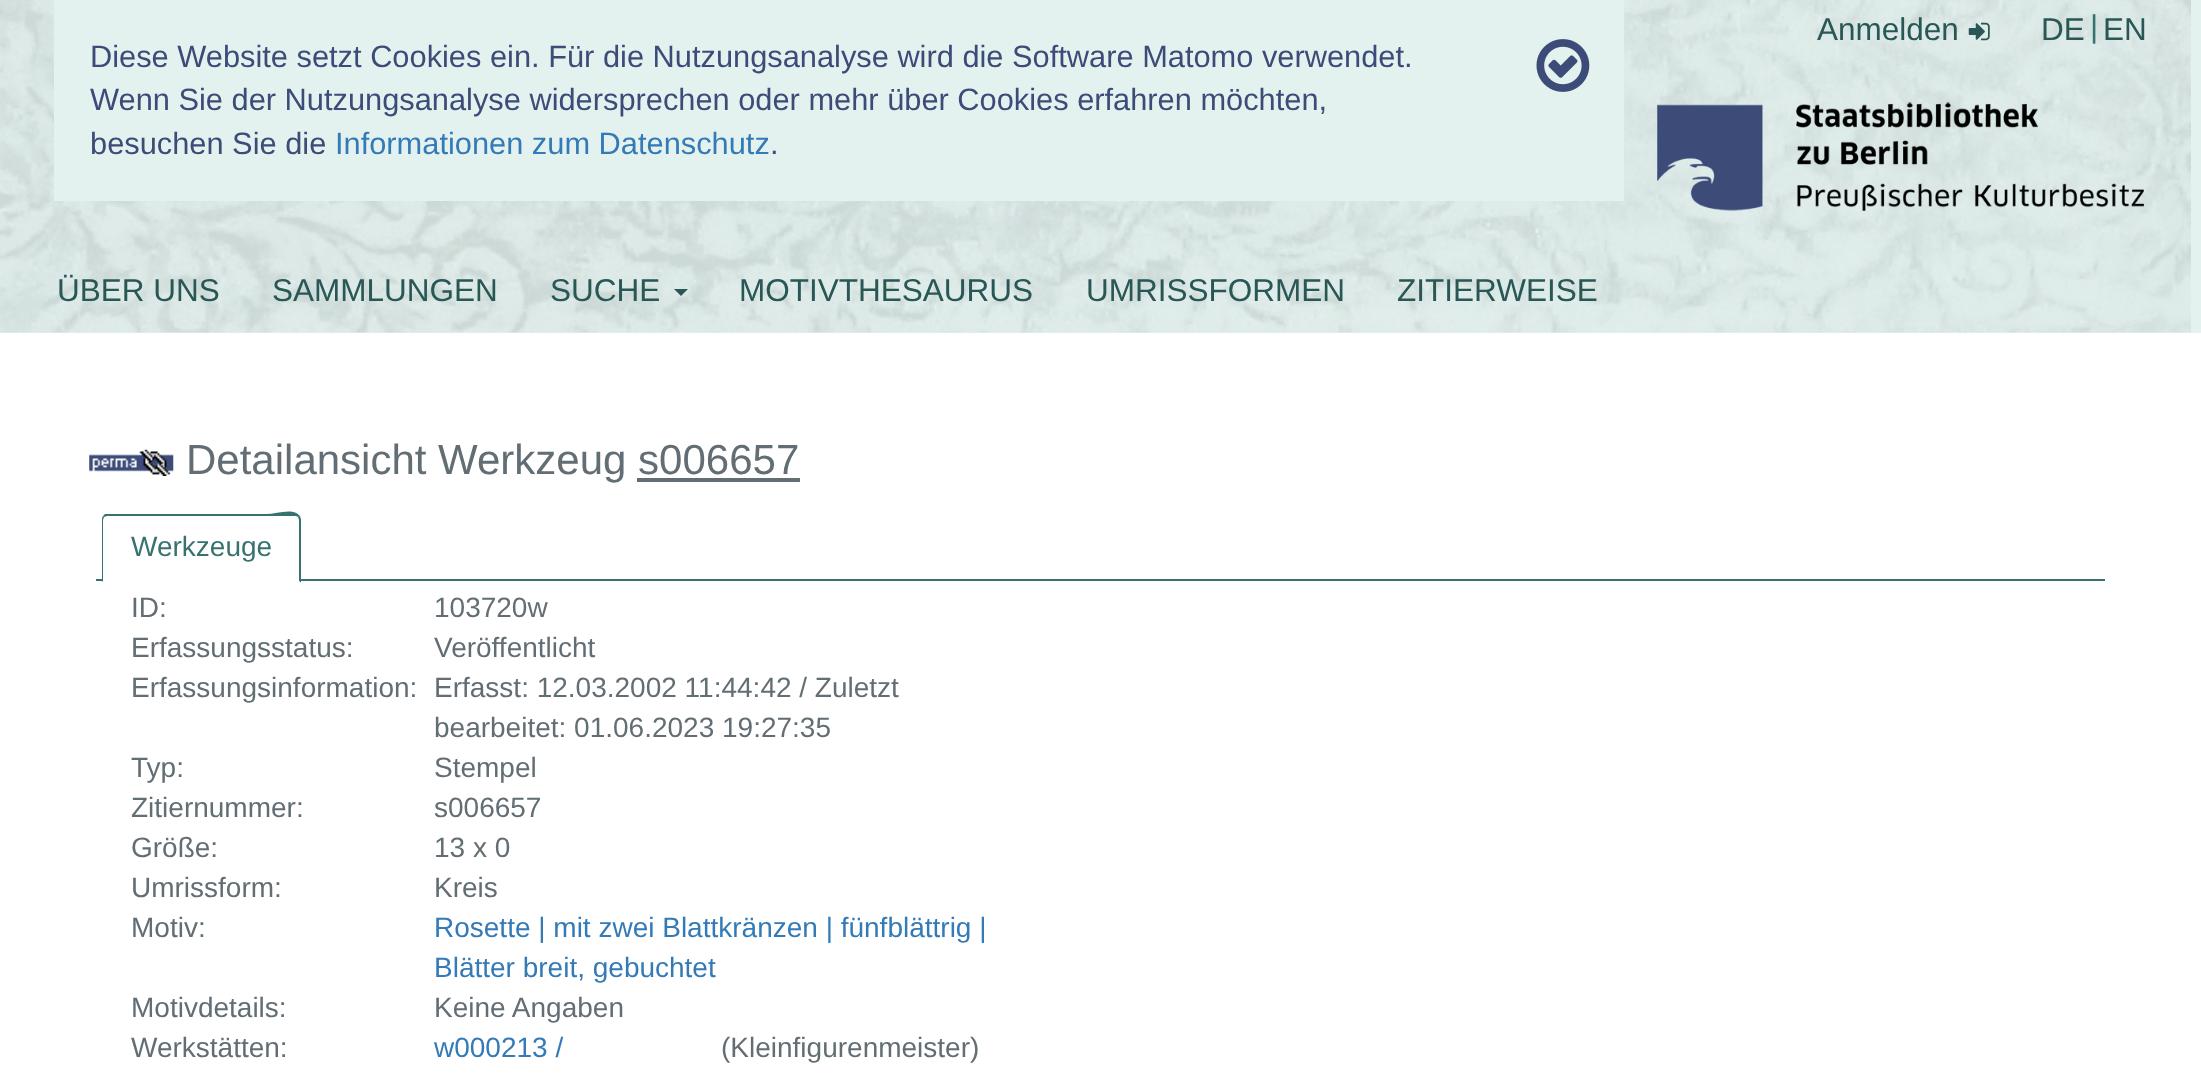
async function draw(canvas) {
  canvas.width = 2201
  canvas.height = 1074
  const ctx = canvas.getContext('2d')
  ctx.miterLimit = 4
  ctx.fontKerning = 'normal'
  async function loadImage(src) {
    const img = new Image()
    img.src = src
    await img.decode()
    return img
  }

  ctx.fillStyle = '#fff'
  ctx.fillRect(0, 0, 2201, 1074)
  ctx.fillStyle = '#e4f2ef'
  ctx.fillRect(0, 0, 2201, 333)
  ctx.drawImage(await loadImage('image0.png'), 0, 0, 2191, 333)
  ctx.font = '31.5px Liberation Sans'
  ctx.fillStyle = '#295755'
  ctx.fillText('Anmelden', 1817, 40)
  ctx.drawImage(await loadImage('image1.png'), 1968, 22, 22, 19)
  ctx.fillText('DE', 2041, 40)
  ctx.fillStyle = '#367270'
  ctx.fillText('|', 2090, 37)
  ctx.fillStyle = '#295755'
  ctx.fillText('EN', 2103, 40)
  ctx.fillStyle = '#e4f2ef'
  ctx.fillRect(54, 0, 1570, 201)
  ctx.font = '30.8px Liberation Sans'
  ctx.fillStyle = '#3c4b78'
  ctx.fillText('Diese Website setzt Cookies ein. Für die Nutzungsanalyse wird die Software Matomo verwendet.', 90, 67)
  ctx.fillText('Wenn Sie der Nutzungsanalyse widersprechen oder mehr über Cookies erfahren möchten,', 90, 110)
  ctx.fillText('besuchen Sie die', 90, 154)
  ctx.fillStyle = '#337ab7'
  ctx.fillText('Informationen zum Datenschutz', 335, 154)
  ctx.fillStyle = '#3c4b78'
  ctx.fillText('.', 770, 154)
  ctx.drawImage(await loadImage('image2.png'), 1536, 39, 54, 53)
  ctx.drawImage(await loadImage('image3.png'), 1657, 102, 487, 109)
  ctx.font = '31.5px Liberation Sans'
  ctx.fillStyle = '#295755'
  ctx.fillText('ÜBER UNS', 57, 301)
  ctx.fillText('SAMMLUNGEN', 272, 301)
  ctx.fillText('SUCHE', 550, 301)
  ctx.beginPath()
  ctx.moveTo(674, 289)
  ctx.lineTo(688, 289)
  ctx.lineTo(681, 296)
  ctx.closePath()
  ctx.fill()
  ctx.fillText('MOTIVTHESAURUS', 739, 301)
  ctx.fillText('UMRISSFORMEN', 1086, 301)
  ctx.fillText('ZITIERWEISE', 1397, 301)
  ctx.drawImage(await loadImage('image4.png'), 89, 449, 85, 27)
  ctx.font = '42px Liberation Sans'
  ctx.fillStyle = '#626e74'
  ctx.fillText('Detailansicht Werkzeug s006657', 186, 474)
  ctx.fillRect(637, 478, 163, 4)
  ctx.fillStyle = '#367270'
  ctx.fillRect(96, 579, 2009, 2)
  ctx.fillStyle = '#fff'
  ctx.beginPath()
  ctx.roundRect(102, 515, 199, 68, [5, 5, 0, 0])
  ctx.fill()
  ctx.fillStyle = '#367270'
  ctx.beginPath()
  ctx.moveTo(107, 516)
  ctx.lineTo(104, 517)
  ctx.lineTo(103, 516)
  ctx.lineTo(105, 514)
  ctx.lineTo(266, 514)
  ctx.bezierCurveTo(277, 514, 293, 507, 300, 516)
  ctx.lineTo(298, 517)
  ctx.lineTo(296, 516)
  ctx.closePath()
  ctx.fill()
  ctx.beginPath()
  ctx.moveTo(301, 583)
  ctx.lineTo(301, 520)
  ctx.bezierCurveTo(301, 518, 300, 517, 300, 516)
  ctx.lineTo(298, 517)
  ctx.lineTo(299, 520)
  ctx.lineTo(299, 581)
  ctx.closePath()
  ctx.fill()
  ctx.fillStyle = '#fff'
  ctx.beginPath()
  ctx.moveTo(301, 583)
  ctx.lineTo(102, 583)
  ctx.lineTo(103, 581)
  ctx.lineTo(299, 581)
  ctx.closePath()
  ctx.fill()
  ctx.fillStyle = '#367270'
  ctx.beginPath()
  ctx.moveTo(102, 582)
  ctx.lineTo(102, 520)
  ctx.bezierCurveTo(102, 519, 102, 517, 103, 516)
  ctx.lineTo(104, 517)
  ctx.lineTo(103, 520)
  ctx.lineTo(103, 581)
  ctx.closePath()
  ctx.fill()
  ctx.font = '28px Liberation Sans'
  ctx.fillText('Werkzeuge', 131, 556)
  ctx.fillStyle = '#626e74'
  ctx.fillText('ID:', 131, 617)
  ctx.fillText('103720w', 434, 617)
  ctx.fillText('Erfassungsstatus:', 131, 657)
  ctx.fillText('Veröffentlicht', 434, 657)
  ctx.fillText('Erfassungsinformation:', 131, 697)
  ctx.fillText('Erfasst: 12.03.2002 11:44:42 / Zuletzt', 434, 697)
  ctx.fillText('bearbeitet: 01.06.2023 19:27:35', 434, 737)
  ctx.fillText('Typ:', 131, 777)
  ctx.fillText('Stempel', 434, 777)
  ctx.fillText('Zitiernummer:', 131, 817)
  ctx.fillText('s006657', 434, 817)
  ctx.fillText('Größe:', 131, 857)
  ctx.fillText('13 x 0', 434, 857)
  ctx.fillText('Umrissform:', 131, 897)
  ctx.fillText('Kreis', 434, 897)
  ctx.fillText('Motiv:', 131, 937)
  ctx.fillStyle = '#337ab7'
  ctx.fillText('Rosette | mit zwei Blattkränzen | fünfblättrig |', 434, 937)
  ctx.fillText('Blätter breit, gebuchtet', 434, 977)
  ctx.fillStyle = '#626e74'
  ctx.fillText('Motivdetails:', 131, 1017)
  ctx.fillText('Keine Angaben', 434, 1017)
  ctx.fillText('Werkstätten:', 131, 1057)
  ctx.fillStyle = '#337ab7'
  ctx.fillText('w000213 /', 434, 1057)
  ctx.fillStyle = '#626e74'
  ctx.fillText('(Kleinfigurenmeister)', 721, 1057)
}

draw(document.querySelector('canvas'))
